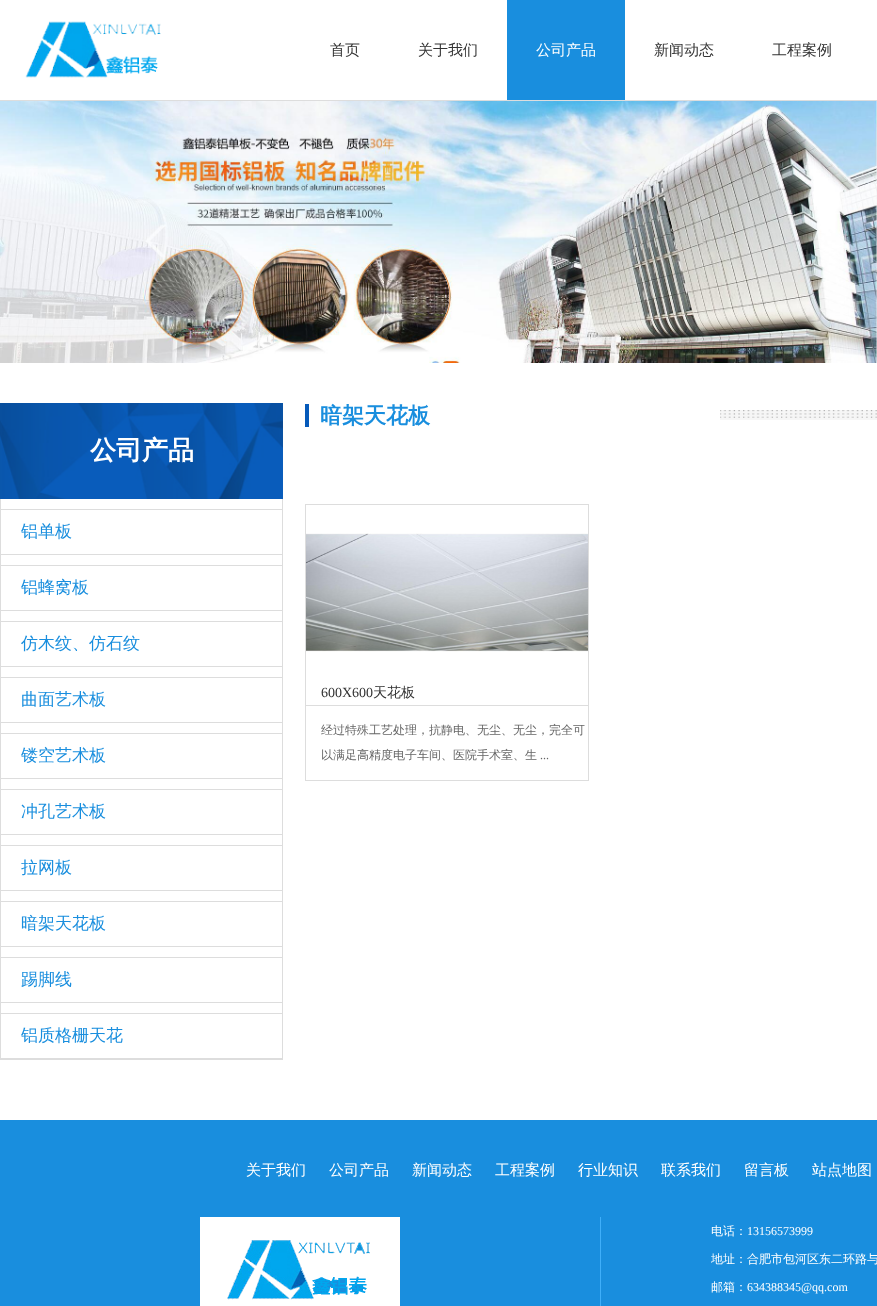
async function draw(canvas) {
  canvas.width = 877
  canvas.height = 1306
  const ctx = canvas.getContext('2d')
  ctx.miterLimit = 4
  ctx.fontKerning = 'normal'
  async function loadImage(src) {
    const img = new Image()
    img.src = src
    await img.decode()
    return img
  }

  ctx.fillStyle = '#fff'
  ctx.fillRect(0, 0, 877, 1306)
  ctx.fillStyle = '#ddd'
  ctx.fillRect(0, 100, 877, 1)
  ctx.drawImage(await loadImage('image0.png'), 25, 21, 136, 57)
  ctx.font = '500 15px WenQuanYi Zen Hei'
  ctx.fillStyle = '#333'
  ctx.fillText('首页', 330, 55)
  ctx.fillText('关于我们', 418, 55)
  ctx.fillStyle = '#198ede'
  ctx.fillRect(507, 0, 118, 100)
  ctx.fillStyle = '#fff'
  ctx.fillText('公司产品', 536, 55)
  ctx.fillStyle = '#333'
  ctx.fillText('新闻动态', 654, 55)
  ctx.fillText('工程案例', 772, 55)
  ctx.drawImage(await loadImage('image1.png'), 0, 101, 877, 262)
  ctx.drawImage(await loadImage('image2.png'), 0, 403, 283, 96)
  ctx.font = 'bold 26px WenQuanYi Zen Hei'
  ctx.fillStyle = '#fff'
  ctx.fillText('公司产品', 90, 459)
  ctx.fillStyle = '#ddd'
  ctx.fillRect(282, 499, 1, 561)
  ctx.fillRect(0, 1059, 283, 1)
  ctx.fillRect(0, 499, 1, 561)
  ctx.fillRect(1, 509, 281, 1)
  ctx.fillRect(1, 554, 281, 1)
  ctx.font = '500 17px WenQuanYi Zen Hei'
  ctx.fillStyle = '#198ede'
  ctx.fillText('铝单板', 21, 537)
  ctx.fillStyle = '#ddd'
  ctx.fillRect(1, 565, 281, 1)
  ctx.fillRect(1, 610, 281, 1)
  ctx.fillStyle = '#198ede'
  ctx.fillText('铝蜂窝板', 21, 593)
  ctx.fillStyle = '#ddd'
  ctx.fillRect(1, 621, 281, 1)
  ctx.fillRect(1, 666, 281, 1)
  ctx.fillStyle = '#198ede'
  ctx.fillText('仿木纹、仿石纹', 21, 649)
  ctx.fillStyle = '#ddd'
  ctx.fillRect(1, 677, 281, 1)
  ctx.fillRect(1, 722, 281, 1)
  ctx.fillStyle = '#198ede'
  ctx.fillText('曲面艺术板', 21, 705)
  ctx.fillStyle = '#ddd'
  ctx.fillRect(1, 733, 281, 1)
  ctx.fillRect(1, 778, 281, 1)
  ctx.fillStyle = '#198ede'
  ctx.fillText('镂空艺术板', 21, 761)
  ctx.fillStyle = '#ddd'
  ctx.fillRect(1, 789, 281, 1)
  ctx.fillRect(1, 834, 281, 1)
  ctx.fillStyle = '#198ede'
  ctx.fillText('冲孔艺术板', 21, 817)
  ctx.fillStyle = '#ddd'
  ctx.fillRect(1, 845, 281, 1)
  ctx.fillRect(1, 890, 281, 1)
  ctx.fillStyle = '#198ede'
  ctx.fillText('拉网板', 21, 873)
  ctx.fillStyle = '#ddd'
  ctx.fillRect(1, 901, 281, 1)
  ctx.fillRect(1, 946, 281, 1)
  ctx.fillStyle = '#198ede'
  ctx.fillText('暗架天花板', 21, 929)
  ctx.fillStyle = '#ddd'
  ctx.fillRect(1, 957, 281, 1)
  ctx.fillRect(1, 1002, 281, 1)
  ctx.fillStyle = '#198ede'
  ctx.fillText('踢脚线', 21, 985)
  ctx.fillStyle = '#ddd'
  ctx.fillRect(1, 1013, 281, 1)
  ctx.fillRect(1, 1058, 281, 1)
  ctx.fillStyle = '#198ede'
  ctx.fillText('铝质格栅天花', 21, 1041)
  ctx.drawImage(await loadImage('image3.png'), 720, 410, 157, 10)
  ctx.fillStyle = '#065aba'
  ctx.fillRect(305, 404, 4, 23)
  ctx.font = 'bold 22px WenQuanYi Zen Hei'
  ctx.fillStyle = '#198ede'
  ctx.fillText('暗架天花板', 320, 423)
  ctx.strokeStyle = '#ddd'
  ctx.strokeRect(305.5, 504.5, 283, 276)
  ctx.drawImage(await loadImage('image4.png'), 306, 533, 282, 119)
  ctx.font = '14px Liberation Serif'
  ctx.fillStyle = '#333'
  ctx.fillText('600X600', 321, 697)
  ctx.font = '500 14px WenQuanYi Zen Hei'
  ctx.fillText('天花板', 373, 697)
  ctx.fillStyle = '#ddd'
  ctx.fillRect(306, 705, 282, 1)
  ctx.font = '500 12px WenQuanYi Zen Hei'
  ctx.fillStyle = '#666'
  ctx.fillText('经过特殊工艺处理，抗静电、无尘、无尘，完全可', 321, 734)
  ctx.fillText('以满足高精度电子车间、医院手术室、生', 321, 759)
  ctx.font = '12px Liberation Serif'
  ctx.fillText('...', 540, 759)
  ctx.fillStyle = '#198ede'
  ctx.fillRect(0, 1120, 877, 186)
  ctx.font = '500 15px WenQuanYi Zen Hei'
  ctx.fillStyle = '#fff'
  ctx.fillText('关于我们', 246, 1175)
  ctx.fillText('公司产品', 329, 1175)
  ctx.fillText('新闻动态', 412, 1175)
  ctx.fillText('工程案例', 495, 1175)
  ctx.fillText('行业知识', 578, 1175)
  ctx.fillText('联系我们', 661, 1175)
  ctx.fillText('留言板', 744, 1175)
  ctx.fillText('站点地图', 812, 1175)
  ctx.fillStyle = '#3faffa'
  ctx.fillRect(600, 1217, 1, 89)
  ctx.drawImage(await loadImage('image5.png'), 200, 1217, 200, 89)
  ctx.font = '500 12px WenQuanYi Zen Hei'
  ctx.fillStyle = '#fff'
  ctx.fillText('电话：', 711, 1235)
  ctx.font = '12px Liberation Serif'
  ctx.fillText('13156573999', 747, 1235)
  ctx.font = '500 12px WenQuanYi Zen Hei'
  ctx.fillText('地址：合肥市包河区东二环路与', 711, 1263)
  ctx.fillText('邮箱：', 711, 1291)
  ctx.font = '12px Liberation Serif'
  ctx.fillText('634388345@qq.com', 747, 1291)
}

draw(document.querySelector('canvas'))
